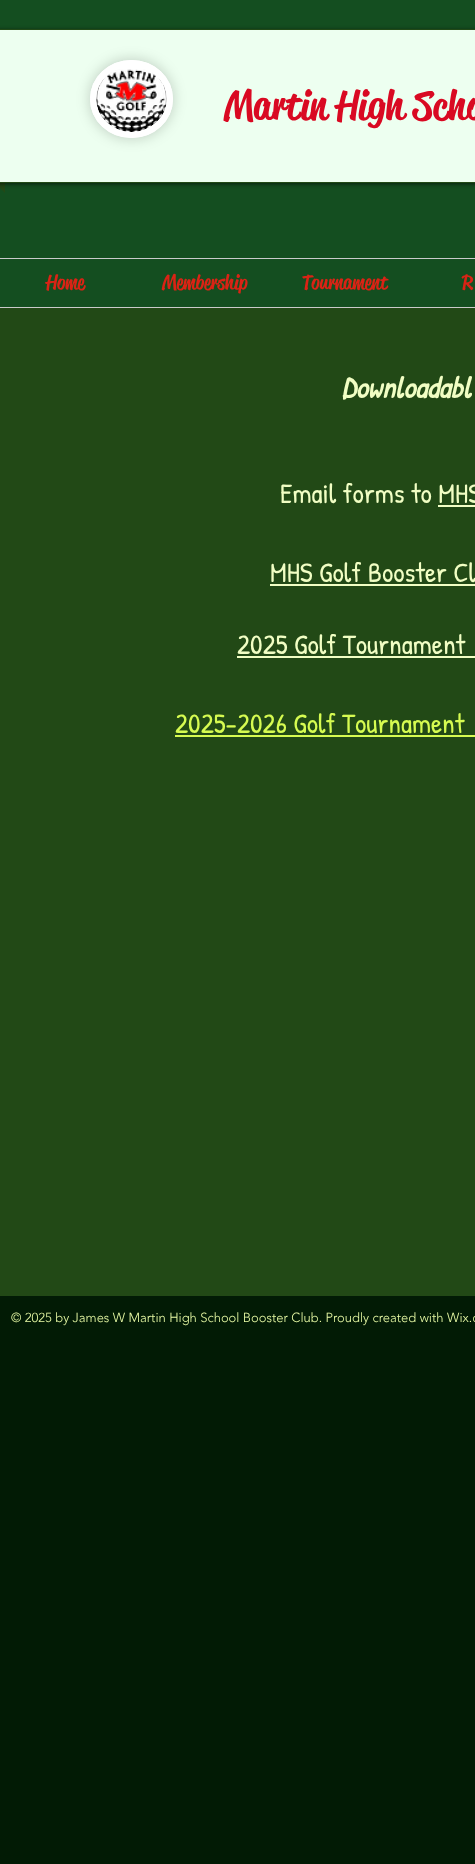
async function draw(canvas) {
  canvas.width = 475
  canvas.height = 1864
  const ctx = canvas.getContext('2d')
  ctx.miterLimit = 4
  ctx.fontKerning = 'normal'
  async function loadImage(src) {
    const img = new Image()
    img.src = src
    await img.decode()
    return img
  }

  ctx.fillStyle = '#021b05'
  ctx.fillRect(0, 0, 475, 1864)
  ctx.fillStyle = '#144e20'
  ctx.fillRect(0, 0, 475, 307)
  ctx.fillStyle = '#224916'
  ctx.beginPath()
  ctx.moveTo(-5, 183)
  ctx.lineTo(5, 183)
  ctx.lineTo(5, 193)
  ctx.closePath()
  ctx.fill()
  ctx.fillStyle = '#00000099'
  ctx.filter = 'blur(2px)'
  ctx.beginPath()
  ctx.rect(-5, 30, 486, 154)
  ctx.fill()
  ctx.filter = 'none'
  ctx.fillStyle = '#edfff0'
  ctx.beginPath()
  ctx.rect(-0.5, 29.5, 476, 153)
  ctx.fill()
  ctx.strokeStyle = '#224916'
  ctx.stroke()
  ctx.fillStyle = '#00000033'
  ctx.filter = 'blur(7px)'
  ctx.beginPath()
  ctx.roundRect(90, 60, 83, 78, 39)
  ctx.fill()
  ctx.filter = 'none'
  ctx.fillStyle = '#fff'
  ctx.beginPath()
  ctx.ellipse(131.5, 99, 41.5, 39, 0, 0, 2 * Math.PI)
  ctx.fill()
  ctx.beginPath()
  ctx.moveTo(131.5, 63)
  ctx.bezierCurveTo(153, 63, 170, 79, 170, 99)
  ctx.bezierCurveTo(170, 119, 153, 135, 131.5, 135)
  ctx.bezierCurveTo(110, 135, 93, 119, 93, 99)
  ctx.bezierCurveTo(93, 79, 110, 63, 131.5, 63)
  ctx.closePath()
  ctx.strokeStyle = '#fff'
  ctx.lineWidth = 6
  ctx.stroke()
  ctx.drawImage(await loadImage('image0.png'), 96, 69, 71, 63)
  ctx.font = '500 40px "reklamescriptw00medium"'
  ctx.fillStyle = '#d90922'
  ctx.fillText('Martin High Scho', 224, 119)
  ctx.fillStyle = '#cacaca'
  ctx.fillRect(0, 258, 475, 1)
  ctx.fillRect(0, 307, 475, 1)
  ctx.font = '500 20px "reklamescriptw00medium"'
  ctx.fillStyle = '#da2315'
  ctx.fillText('Home', 46, 289)
  ctx.fillText('Membership', 162, 289)
  ctx.fillText('Tournament', 302, 289)
  ctx.fillText('R', 462, 289)
  ctx.fillStyle = '#224916'
  ctx.fillRect(0, 308, 475, 988)
  ctx.font = 'italic bold 30px Patrick Hand'
  ctx.fillStyle = '#f1fec4'
  ctx.fillText('Downloadabl', 341, 398)
  ctx.font = '28px Patrick Hand'
  ctx.fillText('Email forms to MHS', 280, 503)
  ctx.fillRect(438, 505, 37, 2)
  ctx.fillText('MHS Golf Booster Cl', 270, 582)
  ctx.fillRect(270, 584, 205, 2)
  ctx.fillText('2025 Golf Tournament', 237, 654)
  ctx.fillRect(237, 656, 238, 2)
  ctx.fillStyle = '#d6fb51'
  ctx.fillText('2025-2026 Golf Tournament', 175, 733)
  ctx.fillRect(175, 735, 300, 2)
  ctx.font = '300 13px "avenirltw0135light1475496"'
  ctx.fillStyle = '#eafca7'
  ctx.fillText('© 2025 by James W Martin High School Booster Club. Proudly created with Wix.c', 11, 1322)
}

draw(document.querySelector('canvas'))
